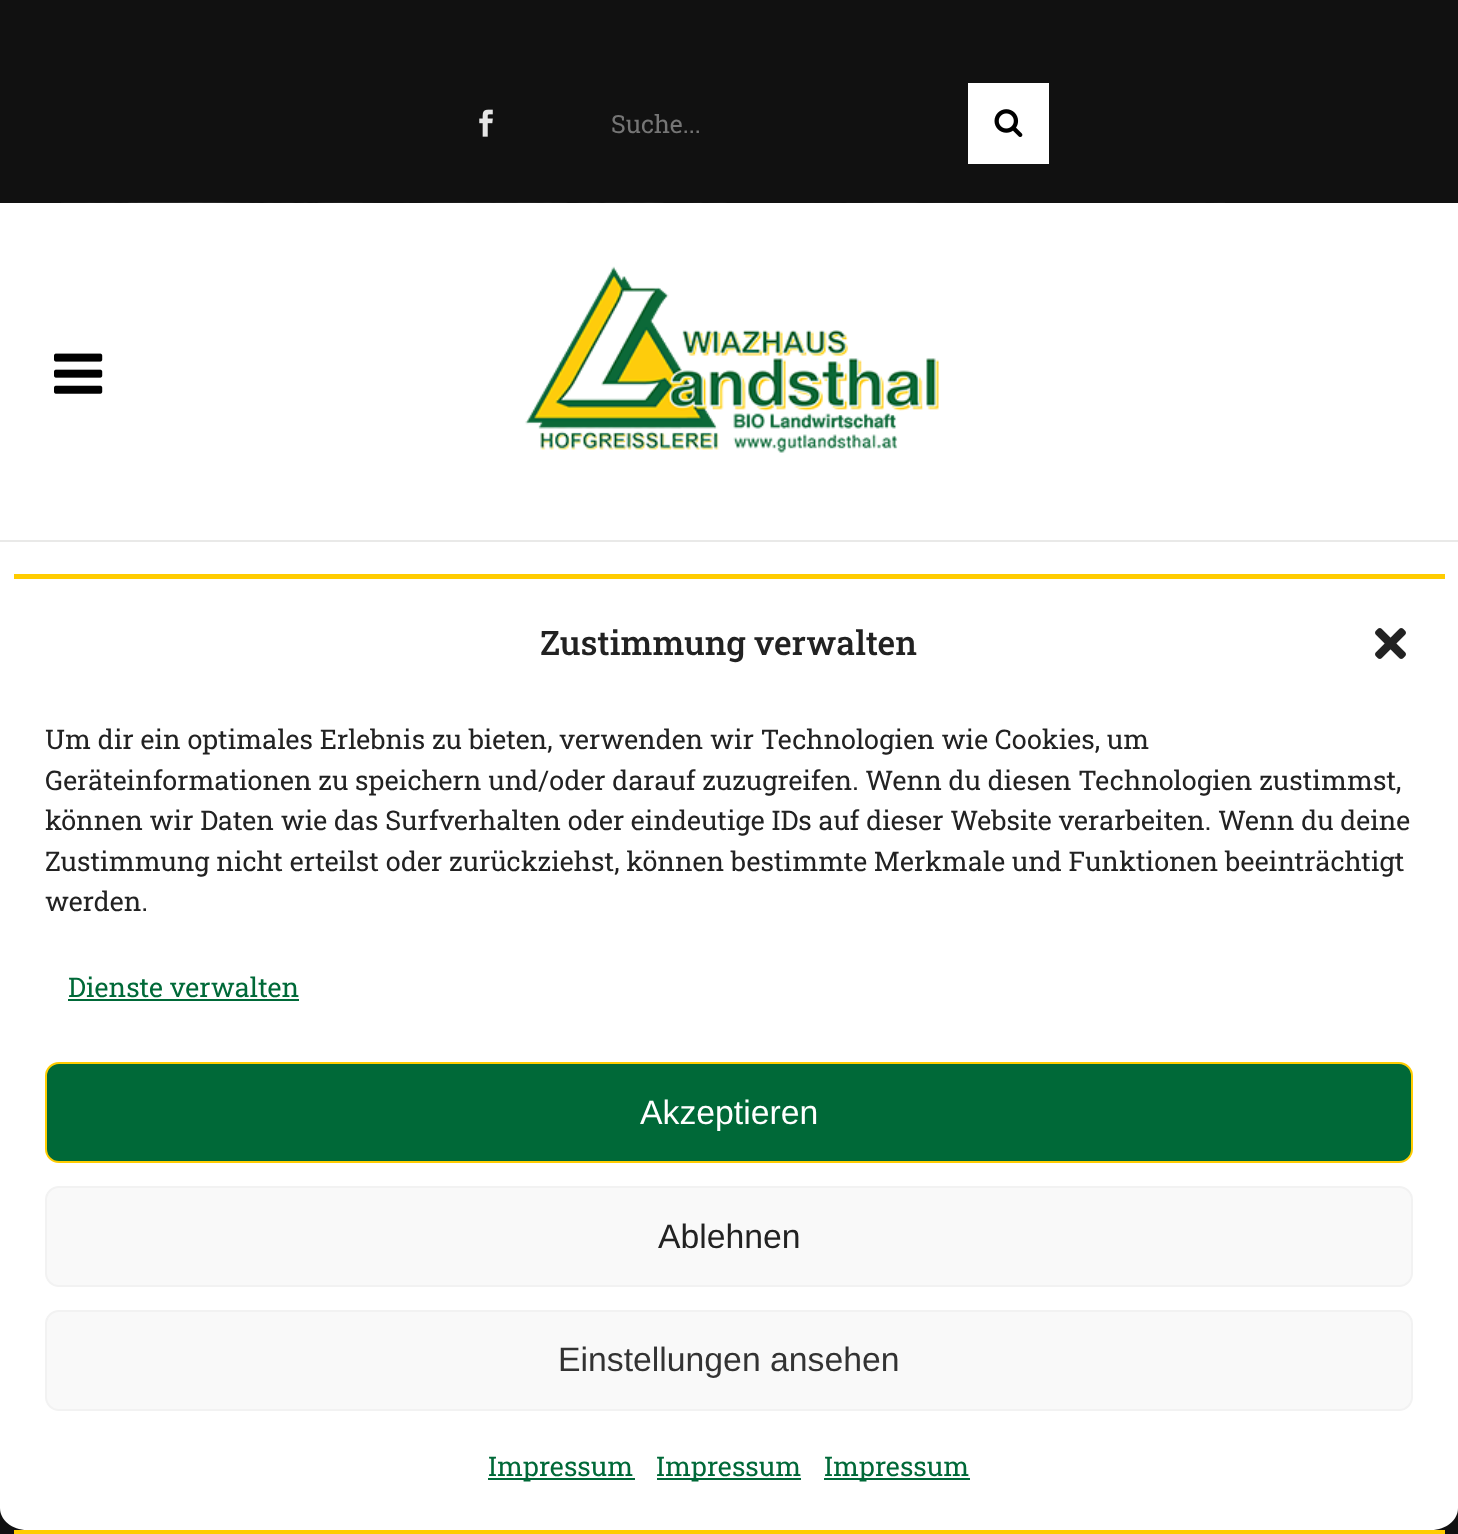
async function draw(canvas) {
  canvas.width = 1458
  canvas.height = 1534
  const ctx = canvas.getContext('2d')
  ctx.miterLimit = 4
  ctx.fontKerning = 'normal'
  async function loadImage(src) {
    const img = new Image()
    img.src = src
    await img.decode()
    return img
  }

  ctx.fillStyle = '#fff'
  ctx.fillRect(0, 0, 1458, 1534)
  ctx.fillStyle = '#111'
  ctx.fillRect(0, 0, 1458, 203)
  ctx.drawImage(await loadImage('image0.png'), 479, 109, 14, 28)
  ctx.font = '25px Roboto Slab'
  ctx.fillStyle = '#757575'
  ctx.fillText('Suche...', 611, 133)
  ctx.fillStyle = '#fff'
  ctx.fillRect(968, 83, 81, 81)
  ctx.drawImage(await loadImage('image1.png'), 994, 109, 29, 28)
  ctx.drawImage(await loadImage('image2.png'), 61, 202, 1164, 1)
  ctx.fillStyle = '#e9e9e8'
  ctx.fillRect(0, 540, 1458, 2)
  ctx.drawImage(await loadImage('image3.png'), 54, 353, 49, 41)
  ctx.drawImage(await loadImage('image4.png'), 525, 266, 414, 187)
  ctx.fillStyle = '#111'
  ctx.fillRect(0, 1508, 1458, 26)
  ctx.fillStyle = '#fff'
  ctx.beginPath()
  ctx.moveTo(27, 578)
  ctx.lineTo(1431, 578)
  ctx.bezierCurveTo(1446, 578, 1458, 588, 1458, 601)
  ctx.lineTo(1458, 1508)
  ctx.bezierCurveTo(1458, 1520, 1446, 1530, 1431, 1530)
  ctx.lineTo(27, 1530)
  ctx.bezierCurveTo(12, 1530, 0, 1520, 0, 1508)
  ctx.lineTo(0, 601)
  ctx.bezierCurveTo(0, 588, 12, 578, 27, 578)
  ctx.closePath()
  ctx.fill()
  ctx.fillStyle = '#fc0'
  ctx.fillRect(14, 574, 1431, 5)
  ctx.fillRect(14, 1530, 1431, 4)
  ctx.font = '500 33.75px Roboto Slab'
  ctx.fillStyle = '#222'
  ctx.fillText('Zustimmung verwalten', 540, 655)
  ctx.drawImage(await loadImage('image5.png'), 1375, 628, 31, 31)
  ctx.font = '27px Roboto Slab'
  ctx.fillText('Um dir ein optimales Erlebnis zu bieten, verwenden wir Technologien wie Cookies, um', 45, 749)
  ctx.fillText('Geräteinformationen zu speichern und/oder darauf zuzugreifen. Wenn du diesen Technologien zustimmst,', 45, 790)
  ctx.fillText('können wir Daten wie das Surfverhalten oder eindeutige IDs auf dieser Website verarbeiten. Wenn du deine', 45, 830)
  ctx.fillText('Zustimmung nicht erteilst oder zurückziehst, können bestimmte Merkmale und Funktionen beeinträchtigt', 45, 871)
  ctx.fillText('werden.', 45, 911)
  ctx.fillStyle = '#006938'
  ctx.fillText('Dienste verwalten', 68, 997)
  ctx.fillRect(68, 999, 231, 2)
  ctx.beginPath()
  ctx.roundRect(46, 1063, 1366, 99, 13)
  ctx.fill()
  ctx.strokeStyle = '#fc0'
  ctx.lineWidth = 2
  ctx.stroke()
  ctx.font = '33.75px Liberation Sans'
  ctx.fillStyle = '#fff'
  ctx.fillText('Akzeptieren', 640, 1124)
  ctx.fillStyle = '#f9f9f9'
  ctx.beginPath()
  ctx.roundRect(46, 1187, 1366, 99, 13)
  ctx.fill()
  ctx.strokeStyle = '#f2f2f2'
  ctx.stroke()
  ctx.fillStyle = '#222'
  ctx.fillText('Ablehnen', 658, 1248)
  ctx.fillStyle = '#f9f9f9'
  ctx.beginPath()
  ctx.roundRect(46, 1311, 1366, 99, 13)
  ctx.fill()
  ctx.stroke()
  ctx.fillStyle = '#333'
  ctx.fillText('Einstellungen ansehen', 558, 1371)
  ctx.fillStyle = '#006938'
  ctx.fillRect(488, 1478, 147, 2)
  ctx.font = '27px Roboto Slab'
  ctx.fillText('Impressum', 488, 1476)
  ctx.fillRect(657, 1478, 144, 2)
  ctx.fillText('Impressum', 656, 1476)
  ctx.fillRect(824, 1478, 146, 2)
  ctx.fillText('Impressum', 824, 1476)
}

draw(document.querySelector('canvas'))
